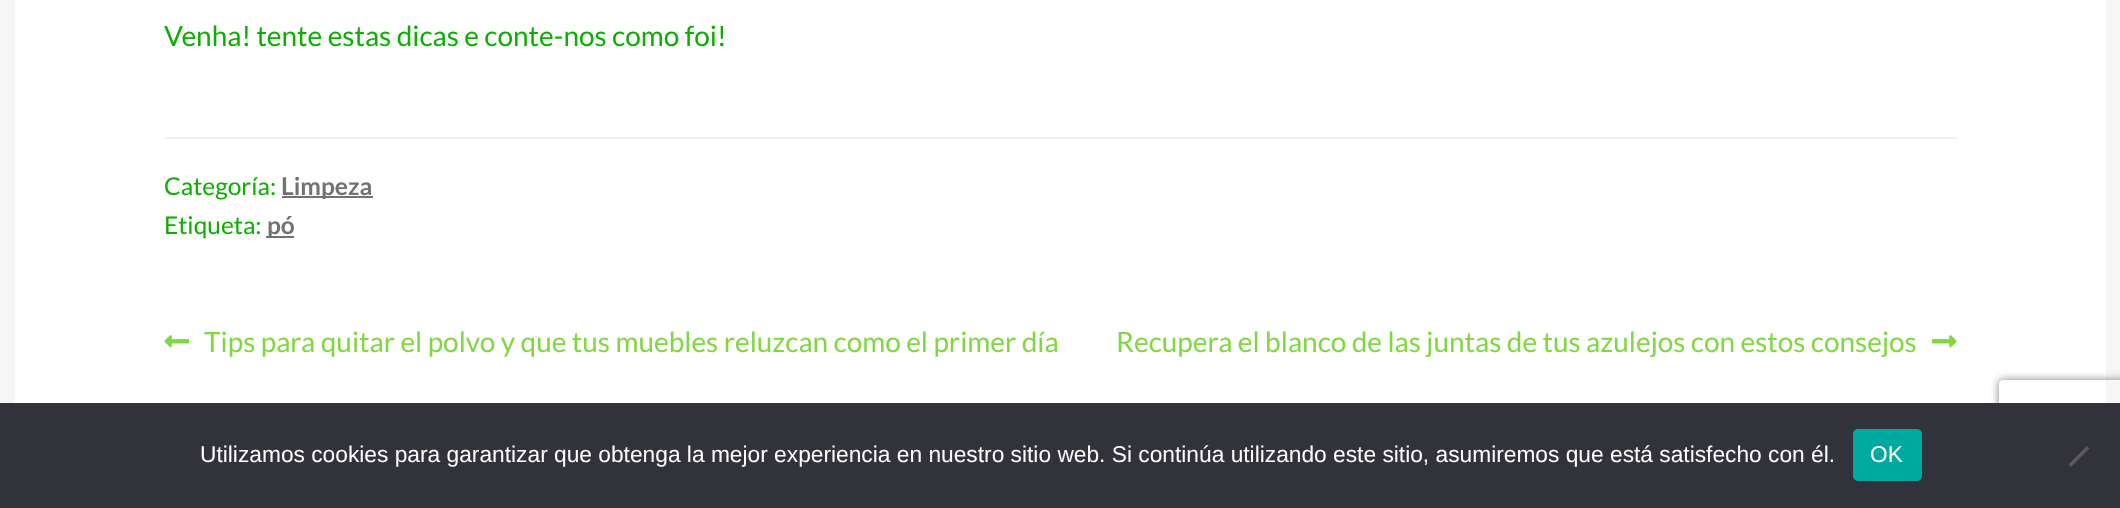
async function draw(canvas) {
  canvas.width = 2120
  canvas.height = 508
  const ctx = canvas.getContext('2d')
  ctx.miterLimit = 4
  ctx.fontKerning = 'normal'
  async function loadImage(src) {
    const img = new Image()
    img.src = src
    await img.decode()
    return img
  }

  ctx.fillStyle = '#fff'
  ctx.fillRect(0, 0, 2120, 508)
  ctx.strokeStyle = '#f6f6f6'
  ctx.lineWidth = 15
  ctx.strokeRect(7.5, -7.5, 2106, 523)
  ctx.font = '28px Lato'
  ctx.fillStyle = '#0baf00'
  ctx.fillText('Venha! tente estas dicas e conte-nos como foi!', 164, 46)
  ctx.fillStyle = '#f2f2f2'
  ctx.fillRect(165, 137, 1792, 2)
  ctx.font = '24.5px Lato'
  ctx.fillStyle = '#0baf00'
  ctx.fillText('Categoría:', 164, 195)
  ctx.fillStyle = '#727272'
  ctx.fillRect(282, 196, 91, 2)
  ctx.font = 'bold 24.5px Lato'
  ctx.fillText('Limpeza', 281, 195)
  ctx.font = '24.5px Lato'
  ctx.fillStyle = '#0baf00'
  ctx.fillText('Etiqueta:', 164, 234)
  ctx.fillStyle = '#727272'
  ctx.fillRect(266, 236, 28, 2)
  ctx.font = 'bold 24.5px Lato'
  ctx.fillText('pó', 267, 234)
  ctx.drawImage(await loadImage('image0.png'), 164, 335, 26, 13)
  ctx.font = '28px Lato'
  ctx.fillStyle = '#81d742'
  ctx.fillText('Tips para quitar el polvo y que tus muebles reluzcan como el primer día', 204, 352)
  ctx.fillText('Recupera el blanco de las juntas de tus azulejos con estos consejos', 1116, 352)
  ctx.drawImage(await loadImage('image1.png'), 1932, 335, 25, 13)
  ctx.save()
  ctx.beginPath()
  ctx.moveTo(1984, 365)
  ctx.lineTo(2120, 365)
  ctx.lineTo(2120, 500)
  ctx.lineTo(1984, 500)
  ctx.closePath()
  ctx.moveTo(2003, 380)
  ctx.lineTo(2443, 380)
  ctx.bezierCurveTo(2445, 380, 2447, 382, 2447, 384)
  ctx.lineTo(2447, 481)
  ctx.bezierCurveTo(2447, 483, 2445, 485, 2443, 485)
  ctx.lineTo(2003, 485)
  ctx.bezierCurveTo(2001, 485, 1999, 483, 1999, 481)
  ctx.lineTo(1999, 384)
  ctx.bezierCurveTo(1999, 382, 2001, 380, 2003, 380)
  ctx.closePath()
  ctx.clip('evenodd')
  ctx.fillStyle = '#808080'
  ctx.filter = 'blur(4.5px)'
  ctx.beginPath()
  ctx.roundRect(1999, 380, 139, 105, 4)
  ctx.fill()
  ctx.filter = 'none'
  ctx.restore()
  ctx.fillStyle = '#32323a'
  ctx.fillRect(0, 403, 2120, 105)
  ctx.font = '22.75px Liberation Sans'
  ctx.fillStyle = '#fff'
  ctx.fillText('Utilizamos cookies para garantizar que obtenga la mejor experiencia en nuestro sitio web. Si continúa utilizando este sitio, asumiremos que está satisfecho con él.', 200, 462)
  ctx.fillStyle = '#00a99d'
  ctx.beginPath()
  ctx.roundRect(1853, 429, 69, 52, 5)
  ctx.fill()
  ctx.fillStyle = '#fff'
  ctx.fillText('OK', 1870, 462)
  ctx.fillStyle = '#59595d'
  ctx.beginPath()
  ctx.moveTo(2087, 446)
  ctx.lineTo(2089.5, 448.5)
  ctx.lineTo(2071, 467)
  ctx.lineTo(2068.5, 464.5)
  ctx.closePath()
  ctx.fill()
}

draw(document.querySelector('canvas'))
